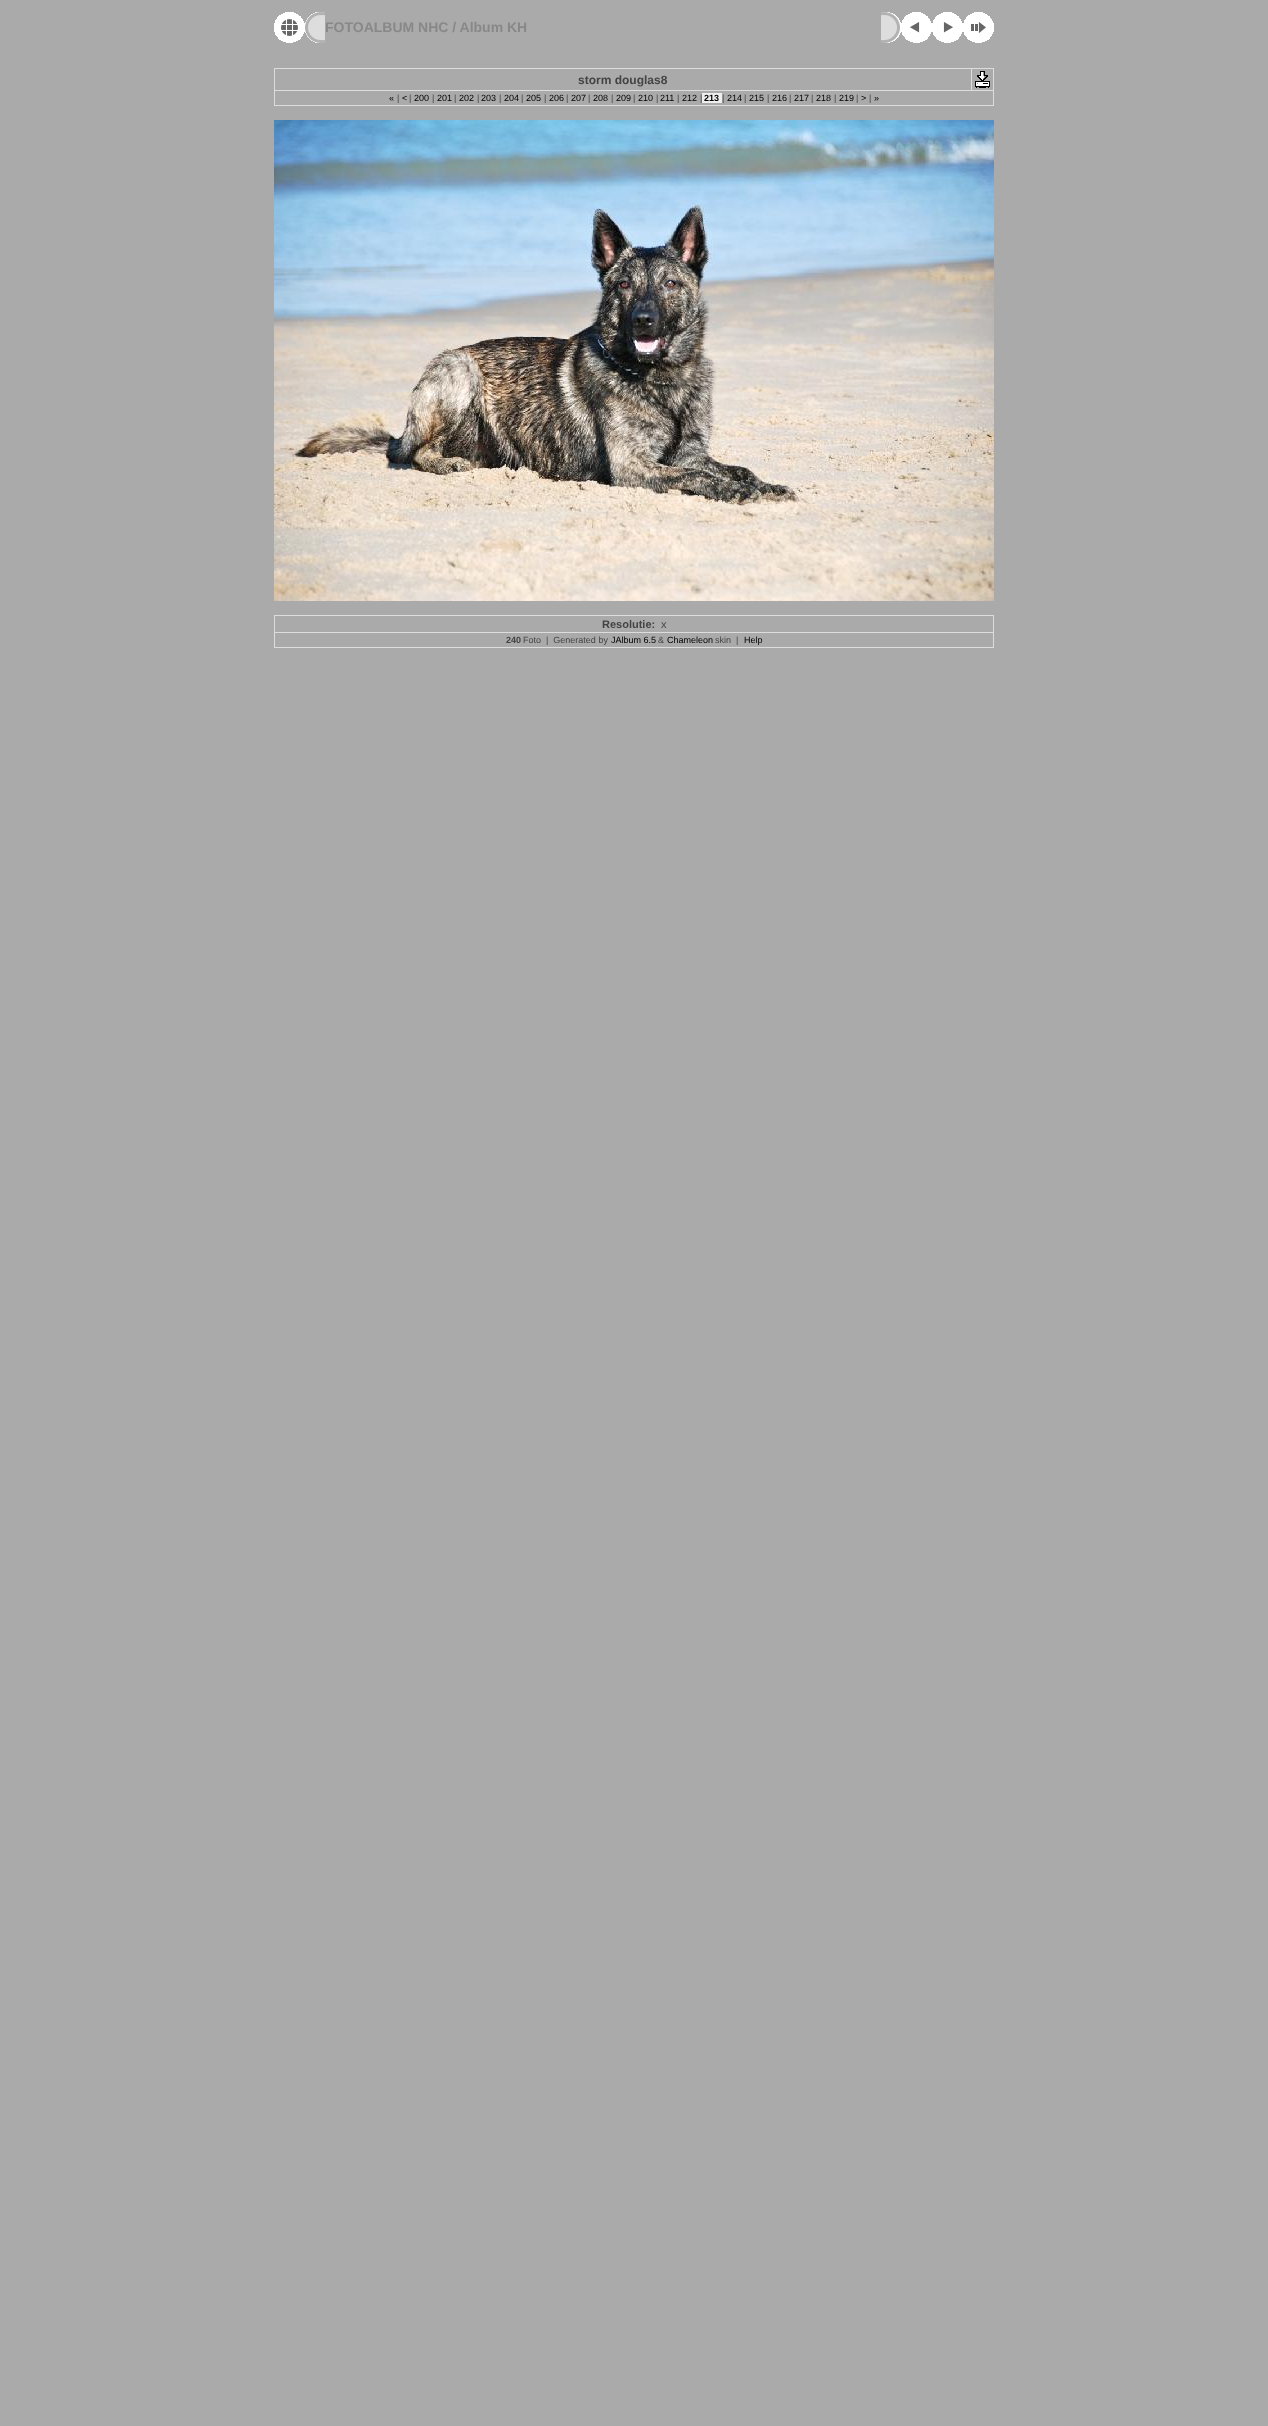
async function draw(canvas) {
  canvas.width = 1268
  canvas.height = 2426
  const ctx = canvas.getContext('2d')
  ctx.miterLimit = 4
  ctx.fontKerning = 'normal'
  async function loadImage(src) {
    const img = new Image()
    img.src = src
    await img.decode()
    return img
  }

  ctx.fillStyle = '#aaa'
  ctx.fillRect(0, 0, 1268, 2426)
  ctx.drawImage(await loadImage('image0.png'), 274, 12, 31, 31)
  ctx.drawImage(await loadImage('image1.png'), 305, 12, 20, 31)
  ctx.font = 'bold 14px Liberation Sans'
  ctx.fillStyle = '#888'
  ctx.fillText('FOTOALBUM NHC / Album KH', 325, 32)
  ctx.drawImage(await loadImage('image2.png'), 881, 12, 20, 31)
  ctx.drawImage(await loadImage('image3.png'), 901, 12, 31, 31)
  ctx.drawImage(await loadImage('image4.png'), 932, 12, 31, 31)
  ctx.drawImage(await loadImage('image5.png'), 963, 12, 31, 31)
  ctx.fillStyle = '#ddd'
  ctx.fillRect(274, 68, 720, 1)
  ctx.fillRect(993, 68, 1, 38)
  ctx.fillRect(274, 105, 720, 1)
  ctx.fillRect(274, 68, 1, 38)
  ctx.font = 'bold 12px Liberation Sans'
  ctx.fillStyle = '#444'
  ctx.fillText('storm douglas8', 578, 84)
  ctx.fillStyle = '#ddd'
  ctx.fillRect(274, 90, 720, 1)
  ctx.fillRect(971, 68, 1, 23)
  ctx.drawImage(await loadImage('image6.png'), 975, 71, 15, 17)
  ctx.font = '9px Liberation Sans'
  ctx.fillStyle = '#000'
  ctx.fillText('«', 389, 101)
  ctx.fillStyle = '#444'
  ctx.fillText('|', 397, 101)
  ctx.fillStyle = '#000'
  ctx.fillText('<', 402, 101)
  ctx.fillStyle = '#444'
  ctx.fillText('|', 409, 101)
  ctx.fillStyle = '#000'
  ctx.fillText('200', 414, 101)
  ctx.fillStyle = '#444'
  ctx.fillText('|', 432, 101)
  ctx.fillStyle = '#000'
  ctx.fillText('201', 437, 101)
  ctx.fillStyle = '#444'
  ctx.fillText('|', 454, 101)
  ctx.fillStyle = '#000'
  ctx.fillText('202', 459, 101)
  ctx.fillStyle = '#444'
  ctx.fillText('|', 477, 101)
  ctx.fillStyle = '#000'
  ctx.fillText('203', 481, 101)
  ctx.fillStyle = '#444'
  ctx.fillText('|', 499, 101)
  ctx.fillStyle = '#000'
  ctx.fillText('204', 504, 101)
  ctx.fillStyle = '#444'
  ctx.fillText('|', 521, 101)
  ctx.fillStyle = '#000'
  ctx.fillText('205', 526, 101)
  ctx.fillStyle = '#444'
  ctx.fillText('|', 544, 101)
  ctx.fillStyle = '#000'
  ctx.fillText('206', 549, 101)
  ctx.fillStyle = '#444'
  ctx.fillText('|', 566, 101)
  ctx.fillStyle = '#000'
  ctx.fillText('207', 571, 101)
  ctx.fillStyle = '#444'
  ctx.fillText('|', 588, 101)
  ctx.fillStyle = '#000'
  ctx.fillText('208', 593, 101)
  ctx.fillStyle = '#444'
  ctx.fillText('|', 611, 101)
  ctx.fillStyle = '#000'
  ctx.fillText('209', 616, 101)
  ctx.fillStyle = '#444'
  ctx.fillText('|', 633, 101)
  ctx.fillStyle = '#000'
  ctx.fillText('210', 638, 101)
  ctx.fillStyle = '#444'
  ctx.fillText('|', 656, 101)
  ctx.fillStyle = '#000'
  ctx.fillText('211', 660, 101)
  ctx.fillStyle = '#444'
  ctx.fillText('|', 677, 101)
  ctx.fillStyle = '#000'
  ctx.fillText('212', 682, 101)
  ctx.fillStyle = '#444'
  ctx.fillText('|', 700, 101)
  ctx.fillStyle = '#eee'
  ctx.fillRect(702, 93, 20, 10)
  ctx.font = 'bold 9px Liberation Sans'
  ctx.fillStyle = '#000'
  ctx.fillText('213', 704, 101)
  ctx.font = '9px Liberation Sans'
  ctx.fillStyle = '#444'
  ctx.fillText('|', 722, 101)
  ctx.fillStyle = '#000'
  ctx.fillText('214', 727, 101)
  ctx.fillStyle = '#444'
  ctx.fillText('|', 744, 101)
  ctx.fillStyle = '#000'
  ctx.fillText('215', 749, 101)
  ctx.fillStyle = '#444'
  ctx.fillText('|', 767, 101)
  ctx.fillStyle = '#000'
  ctx.fillText('216', 772, 101)
  ctx.fillStyle = '#444'
  ctx.fillText('|', 789, 101)
  ctx.fillStyle = '#000'
  ctx.fillText('217', 794, 101)
  ctx.fillStyle = '#444'
  ctx.fillText('|', 811, 101)
  ctx.fillStyle = '#000'
  ctx.fillText('218', 816, 101)
  ctx.fillStyle = '#444'
  ctx.fillText('|', 834, 101)
  ctx.fillStyle = '#000'
  ctx.fillText('219', 839, 101)
  ctx.fillStyle = '#444'
  ctx.fillText('|', 856, 101)
  ctx.fillStyle = '#000'
  ctx.fillText('>', 861, 101)
  ctx.fillStyle = '#444'
  ctx.fillText('|', 869, 101)
  ctx.fillStyle = '#000'
  ctx.fillText('»', 874, 101)
  ctx.drawImage(await loadImage('image7.png'), 274, 120, 720, 481)
  ctx.fillStyle = '#ddd'
  ctx.fillRect(274, 615, 720, 1)
  ctx.fillRect(993, 615, 1, 33)
  ctx.fillRect(274, 647, 720, 1)
  ctx.fillRect(274, 615, 1, 33)
  ctx.font = 'bold 11px Liberation Sans'
  ctx.fillStyle = '#444'
  ctx.fillText('Resolutie:', 602, 628)
  ctx.font = '11px Liberation Sans'
  ctx.fillText('x', 661, 628)
  ctx.fillStyle = '#ddd'
  ctx.fillRect(274, 632, 720, 1)
  ctx.font = 'bold 9px Liberation Sans'
  ctx.fillStyle = '#444'
  ctx.fillText('240', 506, 643)
  ctx.font = '9px Liberation Sans'
  ctx.fillText('Foto  |  Generated by', 523, 643)
  ctx.fillStyle = '#000'
  ctx.fillText('JAlbum 6.5', 611, 643)
  ctx.fillStyle = '#444'
  ctx.fillText('&', 658, 643)
  ctx.fillStyle = '#000'
  ctx.fillText('Chameleon', 667, 643)
  ctx.fillStyle = '#444'
  ctx.fillText('skin  |', 715, 643)
  ctx.fillStyle = '#000'
  ctx.fillText('Help', 744, 643)
}

draw(document.querySelector('canvas'))
